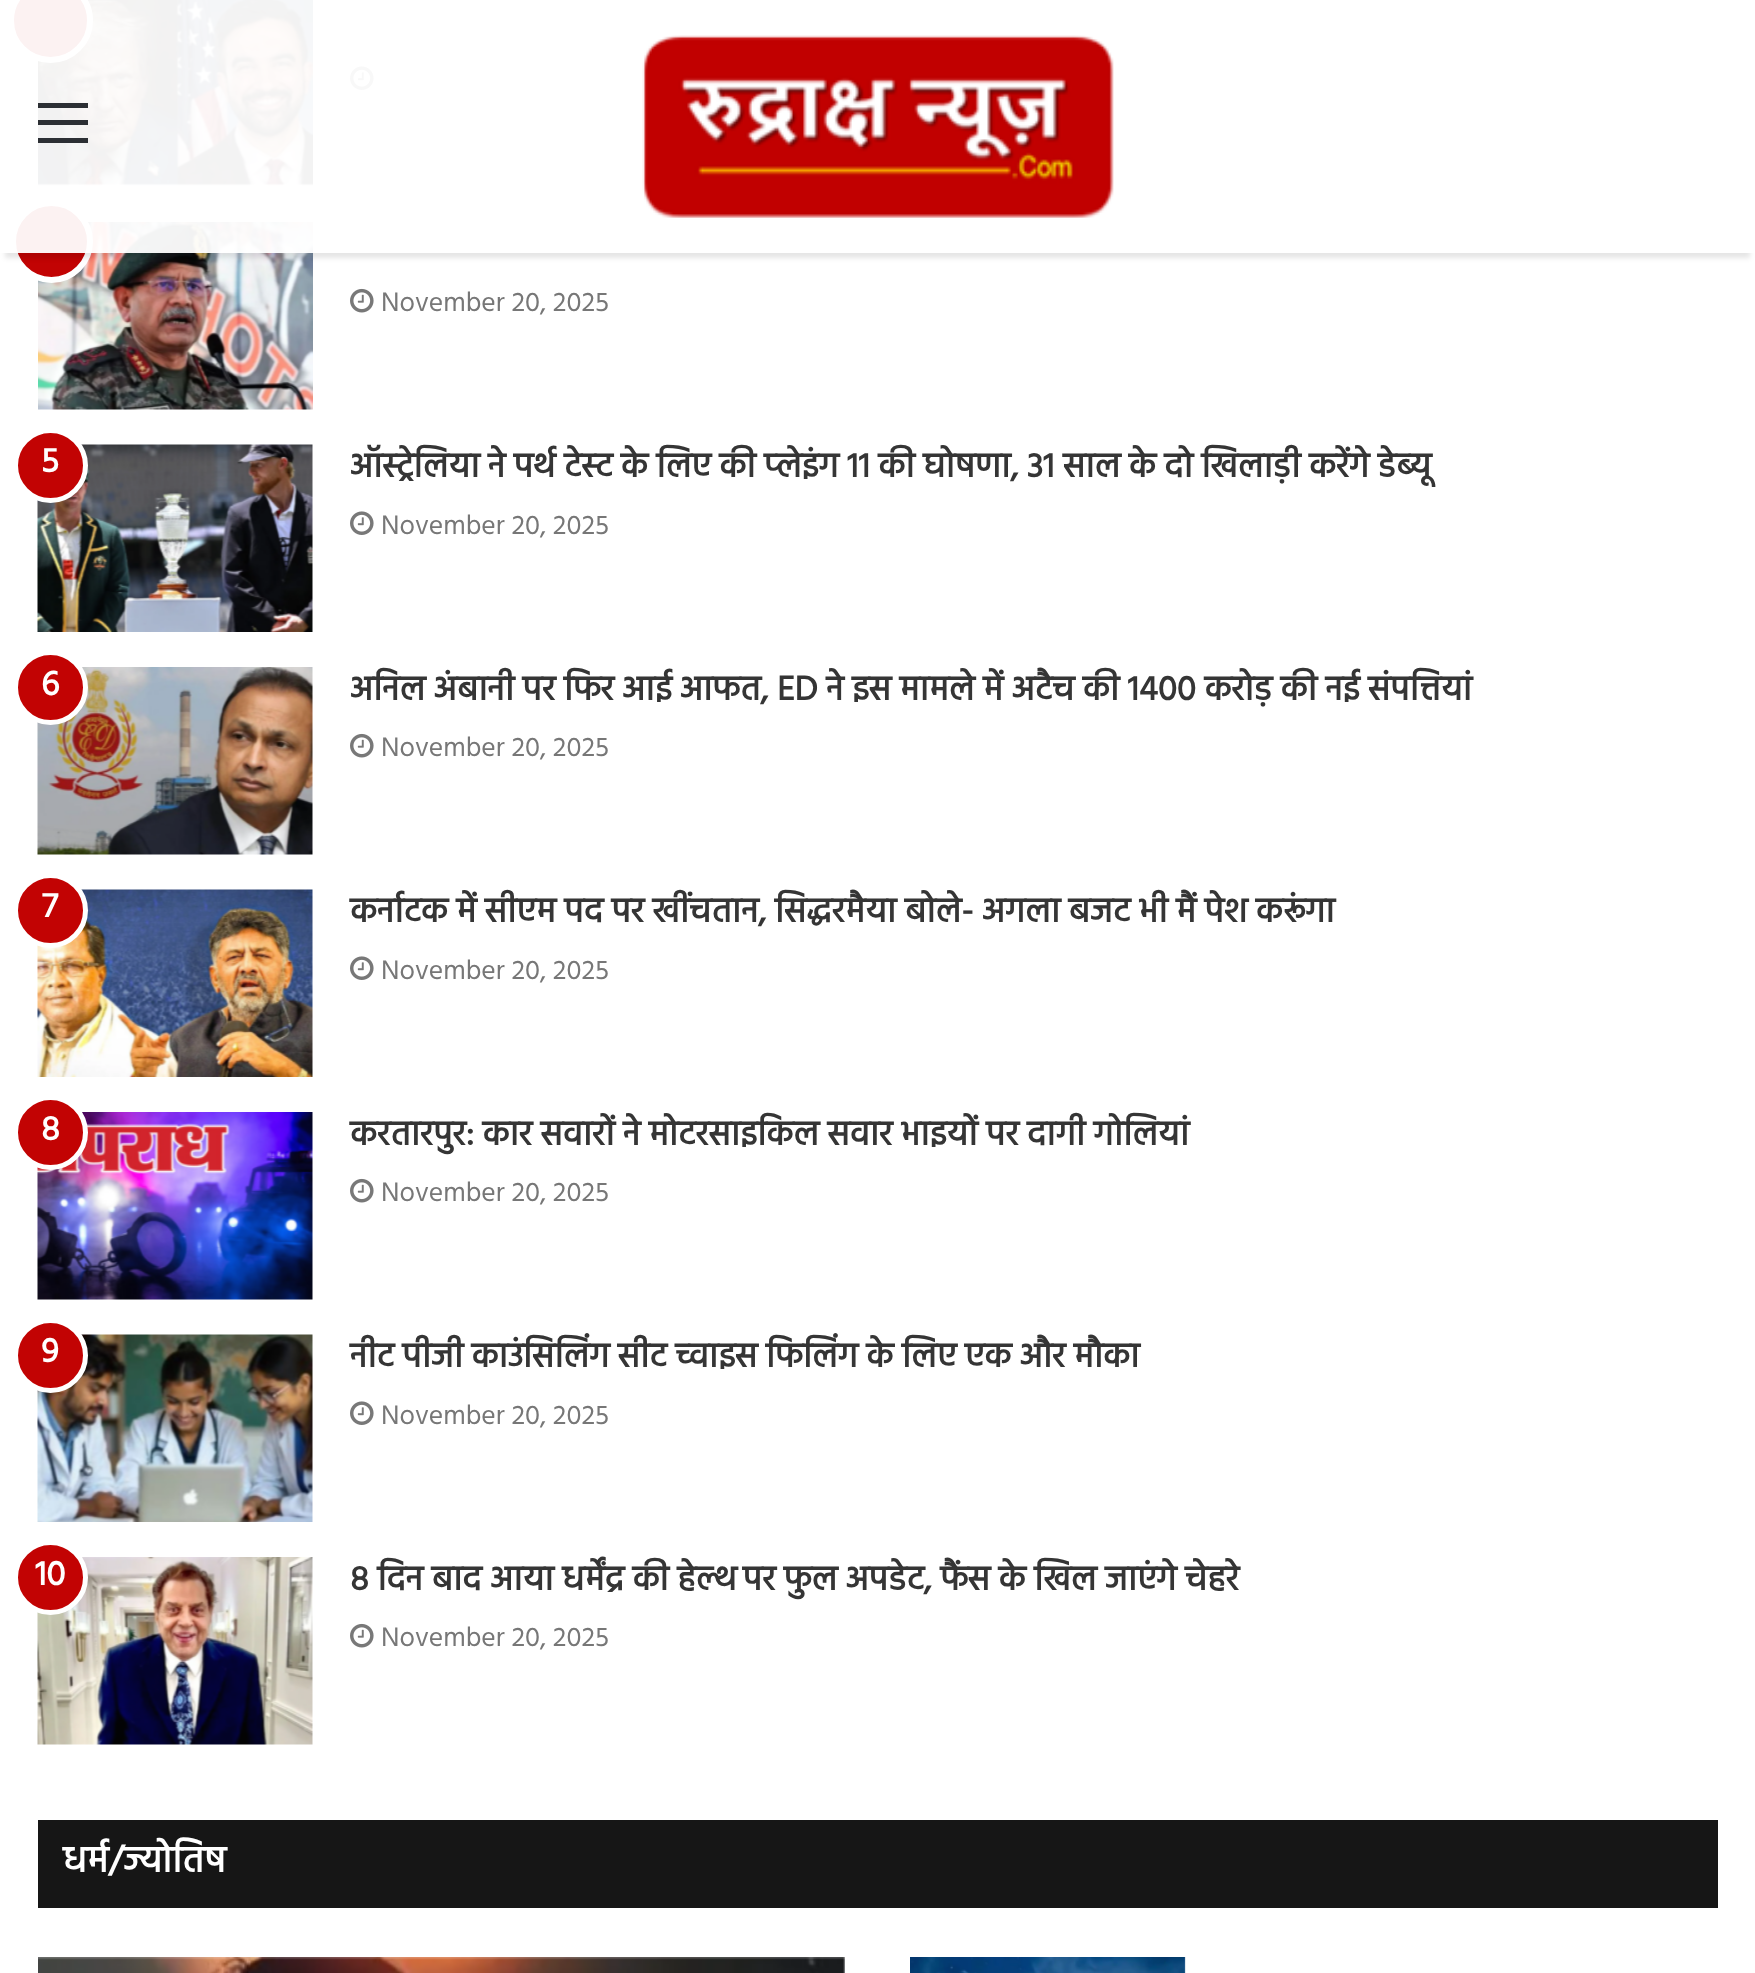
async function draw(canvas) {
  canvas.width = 1755
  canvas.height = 1973
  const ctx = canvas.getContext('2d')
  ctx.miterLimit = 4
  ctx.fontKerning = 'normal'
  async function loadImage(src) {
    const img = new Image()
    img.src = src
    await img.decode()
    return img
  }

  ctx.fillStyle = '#fff'
  ctx.fillRect(0, 0, 1755, 1973)
  ctx.drawImage(await loadImage('image1.png'), 38, 0, 275, 186)
  ctx.fillStyle = '#c20303'
  ctx.beginPath()
  ctx.arc(50.5, 20.5, 39.5, 0, 2 * Math.PI)
  ctx.fill()
  ctx.strokeStyle = '#fff'
  ctx.lineWidth = 6
  ctx.stroke()
  ctx.drawImage(await loadImage('image2.png'), 350, 66, 24, 24)
  ctx.drawImage(await loadImage('image3.png'), 38, 222, 275, 188)
  ctx.beginPath()
  ctx.arc(51.5, 241.5, 38.5, 0, 2 * Math.PI)
  ctx.fill()
  ctx.stroke()
  ctx.save()
  ctx.beginPath()
  ctx.moveTo(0, 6)
  ctx.lineTo(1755, 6)
  ctx.lineTo(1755, 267)
  ctx.lineTo(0, 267)
  ctx.closePath()
  ctx.moveTo(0, 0)
  ctx.lineTo(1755, 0)
  ctx.lineTo(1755, 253)
  ctx.lineTo(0, 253)
  ctx.closePath()
  ctx.clip('evenodd')
  ctx.fillStyle = '#0000001a'
  ctx.filter = 'blur(2.5px)'
  ctx.beginPath()
  ctx.rect(5, 15, 1745, 243)
  ctx.fill()
  ctx.filter = 'none'
  ctx.restore()
  ctx.fillStyle = '#fffffff2'
  ctx.fillRect(3, 0, 1749, 253)
  ctx.fillStyle = '#2c2f34'
  ctx.fillRect(38, 120, 50, 5)
  ctx.fillRect(38, 103, 50, 5)
  ctx.fillRect(38, 138, 50, 5)
  ctx.drawImage(await loadImage('image0.png'), 642, 35, 472, 183)
  ctx.drawImage(await loadImage('image4.png'), 350, 288, 24, 25)
  ctx.font = '27.5px Hind'
  ctx.fillStyle = '#777'
  ctx.fillText('November 20, 2025', 381, 311)
  ctx.drawImage(await loadImage('image5.png'), 37, 444, 276, 188)
  ctx.font = 'bold 35px Hind'
  ctx.fillStyle = '#353535'
  ctx.fillText('ऑस्‍ट्रेलिया ने पर्थ टेस्‍ट के लिए की प्‍लेइंग 11 की घोषणा, 31 साल के दो खिलाड़ी करेंगे डेब्‍यू', 350, 477)
  ctx.drawImage(await loadImage('image2.png'), 350, 511, 24, 24)
  ctx.font = '27.5px Hind'
  ctx.fillStyle = '#777'
  ctx.fillText('November 20, 2025', 381, 534)
  ctx.fillStyle = '#c20303'
  ctx.beginPath()
  ctx.arc(50.5, 465.5, 35, 0, 2 * Math.PI)
  ctx.fill()
  ctx.lineWidth = 5
  ctx.stroke()
  ctx.font = 'bold 35px Hind'
  ctx.fillStyle = '#fff'
  ctx.fillText('5', 41, 472)
  ctx.drawImage(await loadImage('image6.png'), 37, 667, 276, 188)
  ctx.fillStyle = '#353535'
  ctx.fillText('अनिल अंबानी पर फिर आई आफत, ED ने इस मामले में अटैच की 1400 करोड़ की नई संपत्तियां', 350, 700)
  ctx.drawImage(await loadImage('image4.png'), 350, 733, 24, 25)
  ctx.font = '27.5px Hind'
  ctx.fillStyle = '#777'
  ctx.fillText('November 20, 2025', 381, 756)
  ctx.fillStyle = '#c20303'
  ctx.beginPath()
  ctx.arc(50.5, 687.5, 35, 0, 2 * Math.PI)
  ctx.fill()
  ctx.stroke()
  ctx.font = 'bold 35px Hind'
  ctx.fillStyle = '#fff'
  ctx.fillText('6', 41, 695)
  ctx.drawImage(await loadImage('image7.png'), 37, 889, 276, 188)
  ctx.fillStyle = '#353535'
  ctx.fillText('कर्नाटक में सीएम पद पर खींचतान, सिद्धरमैया बोले- अगला बजट भी मैं पेश करूंगा', 350, 922)
  ctx.drawImage(await loadImage('image2.png'), 350, 956, 24, 24)
  ctx.font = '27.5px Hind'
  ctx.fillStyle = '#777'
  ctx.fillText('November 20, 2025', 381, 979)
  ctx.fillStyle = '#c20303'
  ctx.beginPath()
  ctx.arc(50.5, 910.5, 35, 0, 2 * Math.PI)
  ctx.fill()
  ctx.stroke()
  ctx.font = 'bold 35px Hind'
  ctx.fillStyle = '#fff'
  ctx.fillText('7', 42, 917)
  ctx.drawImage(await loadImage('image8.png'), 37, 1112, 276, 188)
  ctx.fillStyle = '#353535'
  ctx.fillText('करतारपुर: कार सवारों ने मोटरसाइकिल सवार भाइयों पर दागी गोलियां', 350, 1145)
  ctx.drawImage(await loadImage('image4.png'), 350, 1178, 24, 25)
  ctx.font = '27.5px Hind'
  ctx.fillStyle = '#777'
  ctx.fillText('November 20, 2025', 381, 1201)
  ctx.fillStyle = '#c20303'
  ctx.beginPath()
  ctx.arc(50.5, 1132.5, 35, 0, 2 * Math.PI)
  ctx.fill()
  ctx.stroke()
  ctx.font = 'bold 35px Hind'
  ctx.fillStyle = '#fff'
  ctx.fillText('8', 41, 1140)
  ctx.drawImage(await loadImage('image9.png'), 37, 1334, 276, 188)
  ctx.fillStyle = '#353535'
  ctx.fillText('नीट पीजी काउंसिलिंग सीट च्वाइस फिलिंग के लिए एक और मौका', 350, 1367)
  ctx.drawImage(await loadImage('image2.png'), 350, 1401, 24, 24)
  ctx.font = '27.5px Hind'
  ctx.fillStyle = '#777'
  ctx.fillText('November 20, 2025', 381, 1424)
  ctx.fillStyle = '#c20303'
  ctx.beginPath()
  ctx.arc(50.5, 1355.5, 35, 0, 2 * Math.PI)
  ctx.fill()
  ctx.stroke()
  ctx.font = 'bold 35px Hind'
  ctx.fillStyle = '#fff'
  ctx.fillText('9', 41, 1362)
  ctx.drawImage(await loadImage('image10.png'), 37, 1557, 276, 188)
  ctx.fillStyle = '#353535'
  ctx.fillText('8 दिन बाद आया धर्मेंद्र की हेल्थ पर फुल अपडेट, फैंस के खिल जाएंगे चेहरे', 350, 1590)
  ctx.drawImage(await loadImage('image4.png'), 350, 1623, 24, 25)
  ctx.font = '27.5px Hind'
  ctx.fillStyle = '#777'
  ctx.fillText('November 20, 2025', 381, 1646)
  ctx.fillStyle = '#c20303'
  ctx.beginPath()
  ctx.arc(50.5, 1577.5, 35, 0, 2 * Math.PI)
  ctx.fill()
  ctx.stroke()
  ctx.font = 'bold 35px Hind'
  ctx.fillStyle = '#fff'
  ctx.fillText('10', 35, 1585)
  ctx.fillStyle = '#161616'
  ctx.fillRect(38, 1820, 1680, 88)
  ctx.font = 'bold 37.5px Hind'
  ctx.fillStyle = '#fff'
  ctx.fillText('धर्म/ज्योतिष', 63, 1872)
  ctx.drawImage(await loadImage('image11.png'), 38, 1957, 807, 16)
  ctx.drawImage(await loadImage('image12.png'), 910, 1957, 276, 16)
}

draw(document.querySelector('canvas'))
